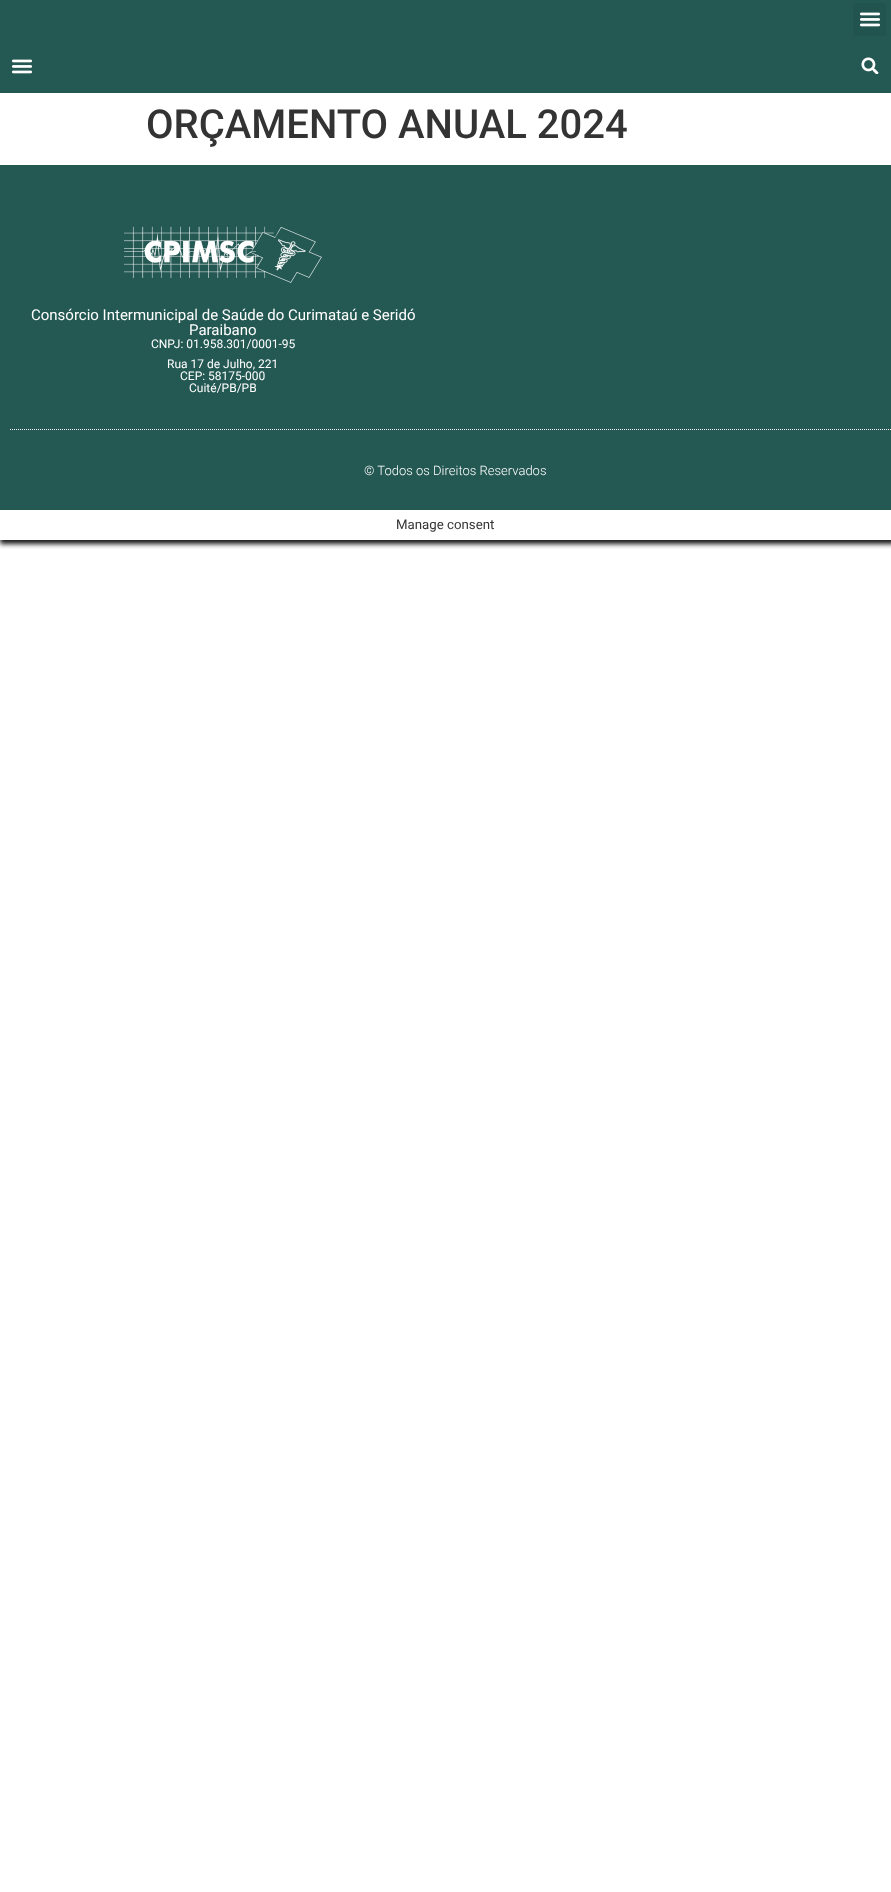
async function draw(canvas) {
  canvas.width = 891
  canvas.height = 1892
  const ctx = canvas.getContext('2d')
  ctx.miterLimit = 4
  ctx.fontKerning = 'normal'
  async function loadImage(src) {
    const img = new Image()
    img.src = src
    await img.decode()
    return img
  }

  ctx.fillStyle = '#fff'
  ctx.fillRect(0, 0, 891, 1892)
  ctx.fillStyle = '#245853'
  ctx.fillRect(0, 0, 891, 93)
  ctx.fillStyle = '#22544f'
  ctx.beginPath()
  ctx.roundRect(853, 3, 33, 33, 3)
  ctx.fill()
  ctx.drawImage(await loadImage('image0.png'), 859, 12, 22, 15)
  ctx.drawImage(await loadImage('image1.png'), 11, 59, 22, 15)
  ctx.drawImage(await loadImage('image2.png'), 861, 57, 18, 17)
  ctx.font = '500 40px Roboto'
  ctx.fillStyle = '#333'
  ctx.fillText('ORÇAMENTO ANUAL 2024', 146, 138)
  ctx.save()
  ctx.beginPath()
  ctx.rect(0, 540, 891, 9)
  ctx.clip()
  ctx.fillStyle = '#161616'
  ctx.filter = 'blur(2.5px)'
  ctx.beginPath()
  ctx.rect(0, 510, 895, 34)
  ctx.fill()
  ctx.filter = 'none'
  ctx.restore()
  ctx.fillStyle = '#245853'
  ctx.fillRect(0, 165, 891, 345)
  ctx.drawImage(await loadImage('image3.png'), 124, 226, 198, 57)
  ctx.font = '15px Roboto'
  ctx.fillStyle = '#fff'
  ctx.fillText('Consórcio Intermunicipal de Saúde do Curimataú e Seridó', 31, 320)
  ctx.fillText('Paraibano', 189, 335)
  ctx.font = '12px Roboto'
  ctx.fillText('CNPJ: 01.958.301/0001-95', 151, 348)
  ctx.fillText('Rua 17 de Julho, 221', 167, 368)
  ctx.fillText('CEP: 58175-000', 180, 380)
  ctx.fillText('Cuité/PB/PB', 189, 392)
  ctx.beginPath()
  ctx.moveTo(10, 429.5)
  ctx.lineTo(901, 429.5)
  ctx.strokeStyle = '#fff'
  ctx.setLineDash([1, 1])
  ctx.stroke()
  ctx.font = '300 13px Roboto'
  ctx.fillText('© Todos os Direitos Reservados', 364, 475)
  ctx.font = '13.25px Roboto'
  ctx.fillStyle = '#333'
  ctx.fillText('Manage consent', 396, 529)
}

draw(document.querySelector('canvas'))
